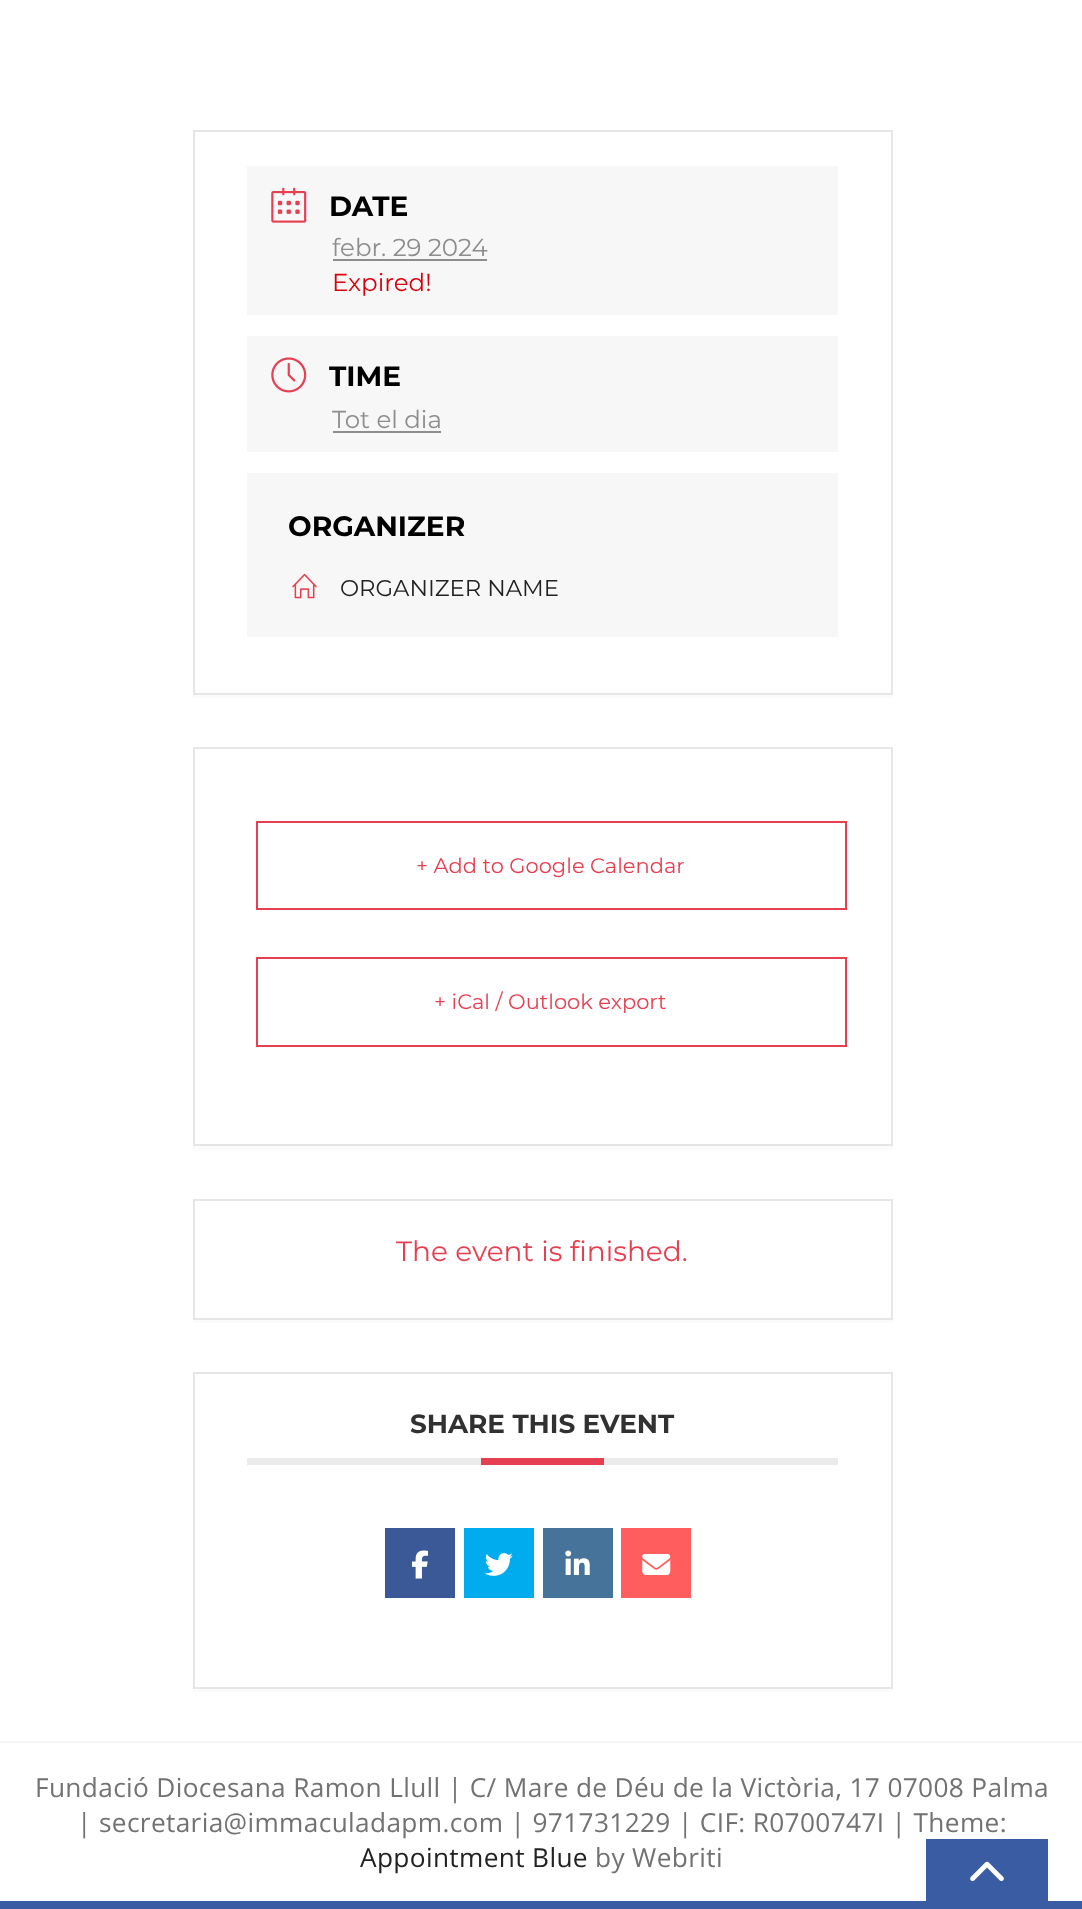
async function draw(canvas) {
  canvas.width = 1082
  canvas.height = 1909
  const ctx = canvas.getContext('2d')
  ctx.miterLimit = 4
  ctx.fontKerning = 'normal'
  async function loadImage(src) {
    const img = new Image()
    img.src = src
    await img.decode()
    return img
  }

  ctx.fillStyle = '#fff'
  ctx.fillRect(0, 0, 1082, 1909)
  ctx.fillStyle = '#fbfbfb'
  ctx.beginPath()
  ctx.moveTo(193, 695)
  ctx.lineTo(193, 698)
  ctx.lineTo(893, 698)
  ctx.lineTo(893, 133)
  ctx.lineTo(892, 133)
  ctx.lineTo(892, 695)
  ctx.closePath()
  ctx.fill()
  ctx.strokeStyle = '#e6e6e6'
  ctx.lineWidth = 2
  ctx.strokeRect(194, 131, 698, 563)
  ctx.fillStyle = '#f7f7f7'
  ctx.fillRect(247, 166, 591, 149)
  ctx.drawImage(await loadImage('image0.png'), 271, 187, 36, 36)
  ctx.font = 'bold 28px Montserrat'
  ctx.fillStyle = '#000'
  ctx.fillText('DATE', 329, 216)
  ctx.font = '24.5px Montserrat'
  ctx.fillStyle = '#8d8d8d'
  ctx.fillText('febr. 29 2024', 332, 256)
  ctx.fillRect(333, 259, 154, 2)
  ctx.fillStyle = '#d8000c'
  ctx.fillText('Expired!', 332, 291)
  ctx.fillStyle = '#f7f7f7'
  ctx.fillRect(247, 336, 591, 116)
  ctx.drawImage(await loadImage('image1.png'), 271, 357, 36, 36)
  ctx.font = 'bold 28px Montserrat'
  ctx.fillStyle = '#000'
  ctx.fillText('TIME', 329, 386)
  ctx.font = '24.5px Montserrat'
  ctx.fillStyle = '#8d8d8d'
  ctx.fillText('Tot el dia', 332, 428)
  ctx.fillRect(333, 431, 108, 2)
  ctx.fillStyle = '#f7f7f7'
  ctx.fillRect(247, 473, 591, 164)
  ctx.font = 'bold 28px Montserrat'
  ctx.fillStyle = '#000'
  ctx.fillText('ORGANIZER', 288, 536)
  ctx.drawImage(await loadImage('image2.png'), 292, 573, 25, 26)
  ctx.font = '22.75px Montserrat'
  ctx.fillStyle = '#222'
  ctx.fillText('ORGANIZER NAME', 340, 596)
  ctx.fillStyle = '#fbfbfb'
  ctx.beginPath()
  ctx.moveTo(193, 1146)
  ctx.lineTo(193, 1150)
  ctx.lineTo(893, 1150)
  ctx.lineTo(893, 751)
  ctx.lineTo(892, 751)
  ctx.lineTo(892, 1146)
  ctx.closePath()
  ctx.fill()
  ctx.strokeRect(194, 748, 698, 397)
  ctx.strokeStyle = '#e53f51'
  ctx.strokeRect(257, 822, 589, 87)
  ctx.font = '21px Montserrat'
  ctx.fillStyle = '#e53f51'
  ctx.fillText('+ Add to Google Calendar', 416, 873)
  ctx.strokeRect(257, 958, 589, 88)
  ctx.fillText('+ iCal / Outlook export', 434, 1009)
  ctx.fillStyle = '#fbfbfb'
  ctx.beginPath()
  ctx.moveTo(193, 1320)
  ctx.lineTo(193, 1323)
  ctx.lineTo(893, 1323)
  ctx.lineTo(893, 1202)
  ctx.lineTo(892, 1202)
  ctx.lineTo(892, 1320)
  ctx.closePath()
  ctx.fill()
  ctx.strokeStyle = '#e6e6e6'
  ctx.strokeRect(194, 1200, 698, 119)
  ctx.font = '28px Montserrat'
  ctx.fillStyle = '#e53f51'
  ctx.fillText('The event is finished.', 396, 1261)
  ctx.fillStyle = '#fbfbfb'
  ctx.beginPath()
  ctx.moveTo(193, 1689)
  ctx.lineTo(193, 1692)
  ctx.lineTo(893, 1692)
  ctx.lineTo(893, 1376)
  ctx.lineTo(892, 1376)
  ctx.lineTo(892, 1689)
  ctx.closePath()
  ctx.fill()
  ctx.strokeRect(194, 1373, 698, 315)
  ctx.fillStyle = '#ebebeb'
  ctx.fillRect(247, 1458, 591, 7)
  ctx.font = 'bold 26.25px Montserrat'
  ctx.fillStyle = '#313131'
  ctx.fillText('SHARE THIS EVENT', 410, 1433)
  ctx.fillStyle = '#e53f51'
  ctx.fillRect(481, 1458, 123, 7)
  ctx.fillStyle = '#3b5996'
  ctx.fillRect(385, 1528, 70, 70)
  ctx.drawImage(await loadImage('image3.png'), 412, 1550, 16, 29)
  ctx.fillStyle = '#00acee'
  ctx.fillRect(464, 1528, 70, 70)
  ctx.drawImage(await loadImage('image4.png'), 485, 1553, 28, 23)
  ctx.fillStyle = '#457399'
  ctx.fillRect(543, 1528, 70, 70)
  ctx.drawImage(await loadImage('image5.png'), 565, 1550, 25, 25)
  ctx.fillStyle = '#ff5d5e'
  ctx.fillRect(621, 1528, 70, 70)
  ctx.drawImage(await loadImage('image6.png'), 642, 1554, 29, 21)
  ctx.fillStyle = '#f4f4f4'
  ctx.fillRect(0, 1741, 1082, 2)
  ctx.fillStyle = '#395ca3'
  ctx.fillRect(0, 1901, 1082, 8)
  ctx.letterSpacing = '0.35px'
  ctx.font = '26.25px Open Sans'
  ctx.fillStyle = '#727272'
  ctx.fillText('Fundació Diocesana Ramon Llull | C/ Mare de Déu de la Victòria, 17 07008 Palma', 35, 1797)
  ctx.fillText('| secretaria@immaculadapm.com | 971731229 | CIF: R0700747I | Theme:', 77, 1832)
  ctx.fillStyle = '#222'
  ctx.fillText('Appointment Blue', 360, 1867)
  ctx.fillStyle = '#727272'
  ctx.fillText('by Webriti', 595, 1867)
  ctx.fillStyle = '#395ca3'
  ctx.fillRect(926, 1839, 122, 62)
  ctx.drawImage(await loadImage('image7.png'), 970, 1861, 34, 20)
}

draw(document.querySelector('canvas'))
